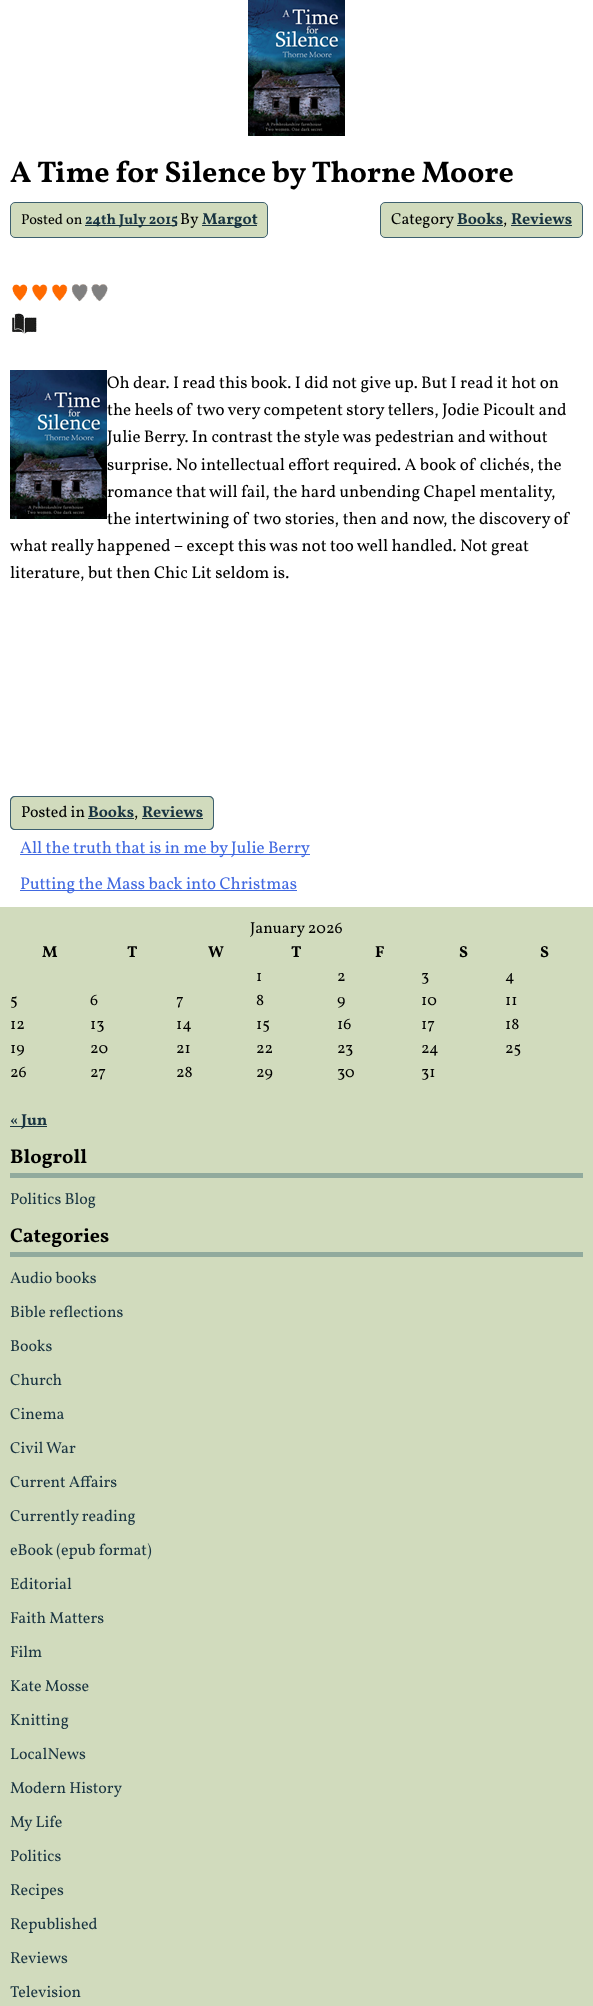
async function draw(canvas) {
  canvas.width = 593
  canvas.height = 2006
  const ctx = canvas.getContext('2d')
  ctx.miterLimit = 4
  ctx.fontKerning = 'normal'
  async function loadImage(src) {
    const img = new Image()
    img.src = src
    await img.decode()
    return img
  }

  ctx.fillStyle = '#d1dbbd'
  ctx.fillRect(0, 0, 593, 2006)
  ctx.fillStyle = '#fff'
  ctx.fillRect(0, 0, 593, 907)
  ctx.drawImage(await loadImage('image0.png'), 248, 0, 97, 136)
  ctx.font = 'bold 30px Vollkorn'
  ctx.fillStyle = '#000'
  ctx.fillText('A Time for Silence by Thorne Moore', 10, 182)
  ctx.fillStyle = '#d1dbbd'
  ctx.beginPath()
  ctx.roundRect(10.5, 202.5, 257, 35, 4.5)
  ctx.fill()
  ctx.strokeStyle = '#3e606f'
  ctx.stroke()
  ctx.font = '14.5px Vollkorn'
  ctx.fillStyle = '#000'
  ctx.fillText('Posted on', 21, 224)
  ctx.fillStyle = '#193441'
  ctx.fillRect(85, 225, 92, 1)
  ctx.font = 'bold 14.5px Vollkorn'
  ctx.fillText('24th July 2015', 85, 224)
  ctx.font = '16px Vollkorn'
  ctx.fillStyle = '#000'
  ctx.fillText('By', 180, 224)
  ctx.fillStyle = '#193441'
  ctx.fillRect(202, 225, 55, 1)
  ctx.font = 'bold 16px Vollkorn'
  ctx.fillText('Margot', 202, 224)
  ctx.fillStyle = '#d1dbbd'
  ctx.beginPath()
  ctx.roundRect(380.5, 202.5, 202, 35, 4.5)
  ctx.fill()
  ctx.stroke()
  ctx.font = '16px Vollkorn'
  ctx.fillStyle = '#000'
  ctx.fillText('Category', 391, 224)
  ctx.font = 'bold 16px Vollkorn'
  ctx.fillStyle = '#193441'
  ctx.fillText('Books', 457, 224)
  ctx.fillRect(457, 225, 46, 1)
  ctx.font = '16px Vollkorn'
  ctx.fillStyle = '#000'
  ctx.fillText(',', 503, 224)
  ctx.font = 'bold 16px Vollkorn'
  ctx.fillStyle = '#193441'
  ctx.fillText('Reviews', 511, 224)
  ctx.fillRect(511, 225, 61, 1)
  ctx.drawImage(await loadImage('image1.png'), 12, 284, 96, 18)
  ctx.drawImage(await loadImage('image2.png'), 12, 313, 25, 22)
  ctx.drawImage(await loadImage('image3.png'), 10, 370, 97, 149)
  ctx.font = '17px Vollkorn'
  ctx.fillStyle = '#000'
  ctx.fillText('Oh dear. I read this book. I did not give up. But I read it hot on', 107, 388)
  ctx.fillText('the heels of two very competent story tellers, Jodie Picoult and', 107, 415)
  ctx.fillText('Julie Berry. In contrast the style was pedestrian and without', 107, 442)
  ctx.fillText('surprise. No intellectual effort required. A book of clichés, the', 107, 470)
  ctx.fillText('romance that will fail, the hard unbending Chapel mentality,', 107, 497)
  ctx.wordSpacing = '0.25px'
  ctx.fillText('the intertwining of two stories, then and now, the discovery of', 107, 524)
  ctx.wordSpacing = '0px'
  ctx.fillText('what really happened – except this was not too well handled. Not great', 10, 551)
  ctx.fillText('literature, but then Chic Lit seldom is.', 10, 578)
  ctx.fillStyle = '#d1dbbd'
  ctx.beginPath()
  ctx.roundRect(10, 796, 78, 34, [5, 0, 0, 5])
  ctx.fill()
  ctx.fillStyle = '#3e606f'
  ctx.beginPath()
  ctx.moveTo(15, 796)
  ctx.lineTo(88, 796)
  ctx.lineTo(88, 830)
  ctx.lineTo(15, 830)
  ctx.bezierCurveTo(12, 830, 10, 828, 10, 825)
  ctx.lineTo(10, 801)
  ctx.bezierCurveTo(10, 798, 12, 796, 15, 796)
  ctx.closePath()
  ctx.moveTo(15, 797)
  ctx.lineTo(88, 797)
  ctx.lineTo(88, 829)
  ctx.lineTo(15, 829)
  ctx.bezierCurveTo(13, 829, 11, 827, 11, 825)
  ctx.lineTo(11, 801)
  ctx.bezierCurveTo(11, 799, 13, 797, 15, 797)
  ctx.closePath()
  ctx.fill('evenodd')
  ctx.font = '16px Vollkorn'
  ctx.fillStyle = '#000'
  ctx.fillText('Posted in', 21, 817)
  ctx.fillStyle = '#d1dbbd'
  ctx.fillRect(88, 797, 46, 32)
  ctx.font = 'bold 16px Vollkorn'
  ctx.fillStyle = '#193441'
  ctx.fillText('Books', 88, 817)
  ctx.fillStyle = '#3e606f'
  ctx.fillRect(88, 796, 46, 1)
  ctx.fillStyle = '#d1dbbd'
  ctx.fillRect(134, 796, 8, 34)
  ctx.fillStyle = '#3e606f'
  ctx.fillRect(134, 796, 8, 1)
  ctx.font = '16px Vollkorn'
  ctx.fillStyle = '#000'
  ctx.fillText(',', 134, 817)
  ctx.fillStyle = '#3e606f'
  ctx.fillRect(88, 829, 46, 1)
  ctx.fillRect(134, 829, 8, 1)
  ctx.fillStyle = '#193441'
  ctx.fillRect(88, 818, 46, 1)
  ctx.fillStyle = '#d1dbbd'
  ctx.beginPath()
  ctx.roundRect(142, 796, 72, 34, [0, 5, 5, 0])
  ctx.fill()
  ctx.fillStyle = '#3e606f'
  ctx.beginPath()
  ctx.moveTo(142, 796)
  ctx.lineTo(209, 796)
  ctx.bezierCurveTo(212, 796, 214, 798, 214, 801)
  ctx.lineTo(214, 825)
  ctx.bezierCurveTo(214, 828, 212, 830, 209, 830)
  ctx.lineTo(142, 830)
  ctx.closePath()
  ctx.moveTo(142, 797)
  ctx.lineTo(209, 797)
  ctx.bezierCurveTo(211, 797, 213, 799, 213, 801)
  ctx.lineTo(213, 825)
  ctx.bezierCurveTo(213, 827, 211, 829, 209, 829)
  ctx.lineTo(142, 829)
  ctx.closePath()
  ctx.fill('evenodd')
  ctx.fillStyle = '#193441'
  ctx.fillRect(142, 818, 61, 1)
  ctx.font = 'bold 16px Vollkorn'
  ctx.fillText('Reviews', 142, 817)
  ctx.fillStyle = '#4169e1'
  ctx.fillRect(20, 854, 290, 1)
  ctx.font = '17px Vollkorn'
  ctx.fillText('All the truth that is in me by Julie Berry', 20, 853)
  ctx.fillRect(20, 890, 277, 1)
  ctx.fillText('Putting the Mass back into Christmas', 20, 889)
  ctx.font = '16px Vollkorn'
  ctx.fillStyle = '#000'
  ctx.fillText('January 2026', 250, 933)
  ctx.font = 'bold 16px Vollkorn'
  ctx.fillText('M', 42, 957)
  ctx.fillText('T', 127, 957)
  ctx.fillText('W', 208, 957)
  ctx.fillText('T', 291, 957)
  ctx.fillText('F', 375, 957)
  ctx.fillText('S', 459, 957)
  ctx.fillText('S', 540, 957)
  ctx.font = '16px Vollkorn'
  ctx.fillText('1', 256, 981)
  ctx.fillText('2', 337, 981)
  ctx.fillText('3', 421, 981)
  ctx.fillText('4', 505, 981)
  ctx.fillText('5', 10, 1005)
  ctx.fillText('6', 90, 1005)
  ctx.fillText('7', 176, 1005)
  ctx.fillText('8', 256, 1005)
  ctx.fillText('9', 337, 1005)
  ctx.fillText('10', 421, 1005)
  ctx.fillText('11', 505, 1005)
  ctx.fillText('12', 10, 1029)
  ctx.fillText('13', 90, 1029)
  ctx.fillText('14', 176, 1029)
  ctx.fillText('15', 256, 1029)
  ctx.fillText('16', 337, 1029)
  ctx.fillText('17', 421, 1029)
  ctx.fillText('18', 505, 1029)
  ctx.fillText('19', 10, 1053)
  ctx.fillText('20', 90, 1053)
  ctx.fillText('21', 176, 1053)
  ctx.fillText('22', 256, 1053)
  ctx.fillText('23', 337, 1053)
  ctx.fillText('24', 421, 1053)
  ctx.fillText('25', 505, 1053)
  ctx.fillText('26', 10, 1077)
  ctx.fillText('27', 90, 1077)
  ctx.fillText('28', 176, 1077)
  ctx.fillText('29', 256, 1077)
  ctx.fillText('30', 337, 1077)
  ctx.fillText('31', 421, 1077)
  ctx.fillStyle = '#193441'
  ctx.fillRect(10, 1126, 37, 1)
  ctx.font = 'bold 16px Vollkorn'
  ctx.fillText('« Jun', 10, 1125)
  ctx.fillStyle = '#91aa9d'
  ctx.fillRect(10, 1173, 573, 5)
  ctx.font = 'bold 20px Vollkorn'
  ctx.fillStyle = '#000'
  ctx.fillText('Blogroll', 10, 1163)
  ctx.font = '16px Vollkorn'
  ctx.fillStyle = '#193441'
  ctx.fillText('Politics Blog', 10, 1204)
  ctx.fillStyle = '#91aa9d'
  ctx.fillRect(10, 1252, 573, 5)
  ctx.font = 'bold 20px Vollkorn'
  ctx.fillStyle = '#000'
  ctx.fillText('Categories', 10, 1242)
  ctx.font = '16px Vollkorn'
  ctx.fillStyle = '#193441'
  ctx.fillText('Audio books', 10, 1283)
  ctx.fillText('Bible reflections', 10, 1317)
  ctx.fillText('Books', 10, 1351)
  ctx.fillText('Church', 10, 1385)
  ctx.fillText('Cinema', 10, 1419)
  ctx.fillText('Civil War', 10, 1453)
  ctx.fillText('Current Affairs', 10, 1487)
  ctx.fillText('Currently reading', 10, 1521)
  ctx.fillText('eBook (epub format)', 10, 1555)
  ctx.fillText('Editorial', 10, 1589)
  ctx.fillText('Faith Matters', 10, 1623)
  ctx.fillText('Film', 10, 1657)
  ctx.fillText('Kate Mosse', 10, 1691)
  ctx.fillText('Knitting', 10, 1725)
  ctx.fillText('LocalNews', 10, 1759)
  ctx.fillText('Modern History', 10, 1793)
  ctx.fillText('My Life', 10, 1827)
  ctx.fillText('Politics', 10, 1861)
  ctx.fillText('Recipes', 10, 1895)
  ctx.fillText('Republished', 10, 1929)
  ctx.fillText('Reviews', 10, 1963)
  ctx.fillText('Television', 10, 1997)
}

draw(document.querySelector('canvas'))
